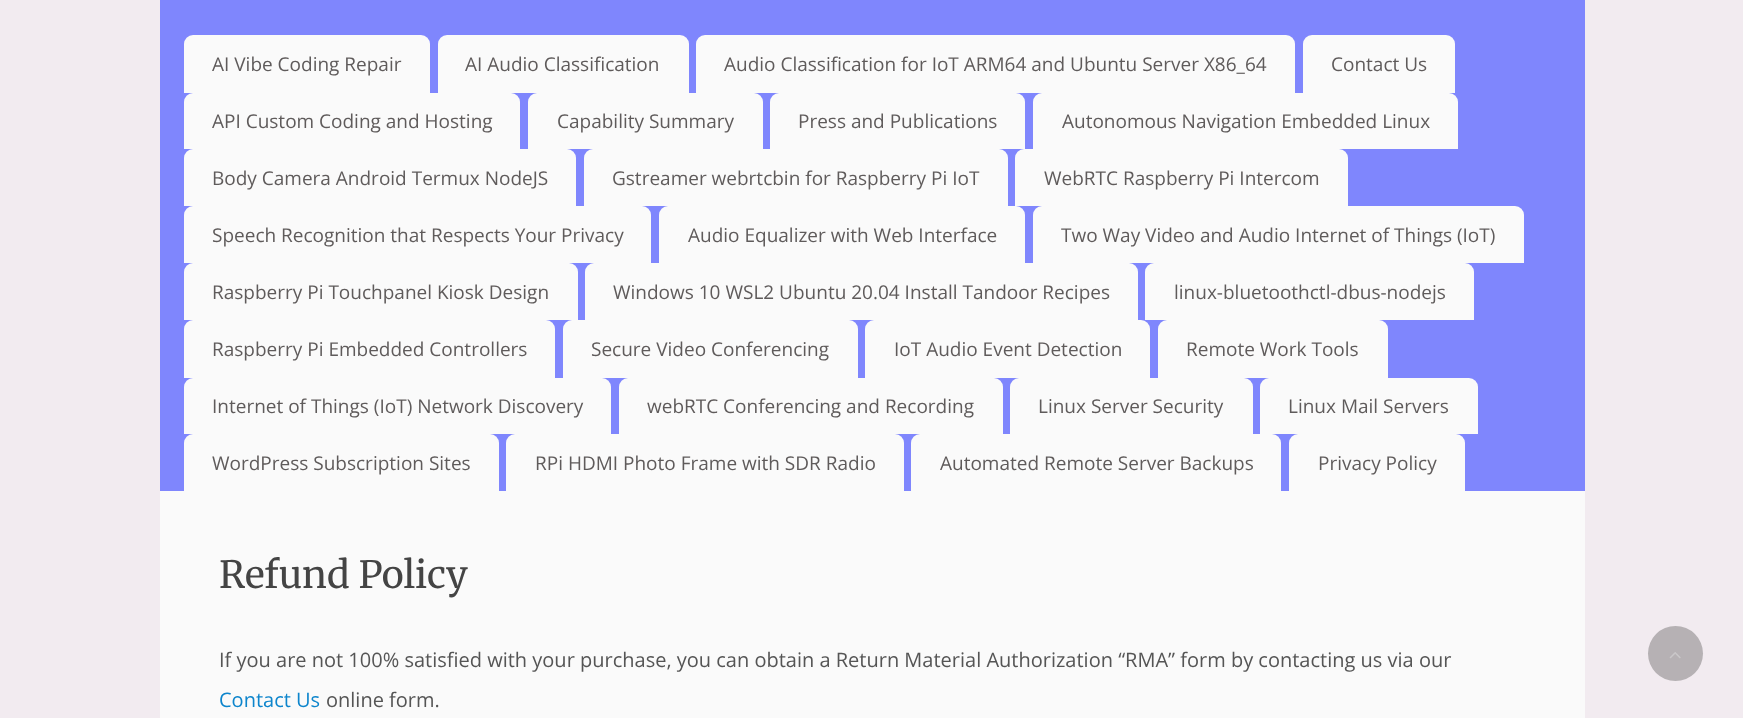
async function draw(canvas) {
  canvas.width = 1743
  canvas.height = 718
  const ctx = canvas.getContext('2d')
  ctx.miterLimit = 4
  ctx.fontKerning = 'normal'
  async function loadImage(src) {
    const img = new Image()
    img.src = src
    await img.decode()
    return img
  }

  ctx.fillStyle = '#f2ebf0'
  ctx.fillRect(0, 0, 1743, 718)
  ctx.fillStyle = '#7f86fd'
  ctx.fillRect(160, 0, 1425, 491)
  ctx.fillStyle = '#fafafa'
  ctx.beginPath()
  ctx.roundRect(184, 35, 246, 58, [9, 9, 0, 0])
  ctx.fill()
  ctx.font = '19px Open Sans'
  ctx.fillStyle = '#5f5b5b'
  ctx.fillText('AI Vibe Coding Repair', 212, 71)
  ctx.fillStyle = '#fafafa'
  ctx.beginPath()
  ctx.roundRect(438, 35, 251, 58, [9, 9, 0, 0])
  ctx.fill()
  ctx.fillStyle = '#5f5b5b'
  ctx.fillText('AI Audio Classification', 465, 71)
  ctx.fillStyle = '#fafafa'
  ctx.beginPath()
  ctx.roundRect(696, 35, 599, 58, [9, 9, 0, 0])
  ctx.fill()
  ctx.fillStyle = '#5f5b5b'
  ctx.fillText('Audio Classification for IoT ARM64 and Ubuntu Server X86_64', 724, 71)
  ctx.fillStyle = '#fafafa'
  ctx.beginPath()
  ctx.roundRect(1303, 35, 152, 58, [9, 9, 0, 0])
  ctx.fill()
  ctx.fillStyle = '#5f5b5b'
  ctx.fillText('Contact Us', 1331, 71)
  ctx.fillStyle = '#fafafa'
  ctx.beginPath()
  ctx.roundRect(184, 93, 336, 56, [9, 9, 0, 0])
  ctx.fill()
  ctx.fillStyle = '#5f5b5b'
  ctx.fillText('API Custom Coding and Hosting', 212, 128)
  ctx.fillStyle = '#fafafa'
  ctx.beginPath()
  ctx.roundRect(528, 93, 235, 56, [9, 9, 0, 0])
  ctx.fill()
  ctx.fillStyle = '#5f5b5b'
  ctx.fillText('Capability Summary', 557, 128)
  ctx.fillStyle = '#fafafa'
  ctx.beginPath()
  ctx.roundRect(770, 93, 255, 56, [9, 9, 0, 0])
  ctx.fill()
  ctx.fillStyle = '#5f5b5b'
  ctx.fillText('Press and Publications', 798, 128)
  ctx.fillStyle = '#fafafa'
  ctx.beginPath()
  ctx.roundRect(1033, 93, 425, 56, [9, 9, 0, 0])
  ctx.fill()
  ctx.fillStyle = '#5f5b5b'
  ctx.fillText('Autonomous Navigation Embedded Linux', 1062, 128)
  ctx.fillStyle = '#fafafa'
  ctx.beginPath()
  ctx.roundRect(184, 149, 392, 57, [9, 9, 0, 0])
  ctx.fill()
  ctx.fillStyle = '#5f5b5b'
  ctx.fillText('Body Camera Android Termux NodeJS', 212, 185)
  ctx.fillStyle = '#fafafa'
  ctx.beginPath()
  ctx.roundRect(584, 149, 424, 57, [9, 9, 0, 0])
  ctx.fill()
  ctx.fillStyle = '#5f5b5b'
  ctx.fillText('Gstreamer webrtcbin for Raspberry Pi IoT', 612, 185)
  ctx.fillStyle = '#fafafa'
  ctx.beginPath()
  ctx.roundRect(1015, 149, 333, 57, [9, 9, 0, 0])
  ctx.fill()
  ctx.fillStyle = '#5f5b5b'
  ctx.fillText('WebRTC Raspberry Pi Intercom', 1044, 185)
  ctx.fillStyle = '#fafafa'
  ctx.beginPath()
  ctx.roundRect(184, 206, 467, 57, [9, 9, 0, 0])
  ctx.fill()
  ctx.fillStyle = '#5f5b5b'
  ctx.fillText('Speech Recognition that Respects Your Privacy', 212, 242)
  ctx.fillStyle = '#fafafa'
  ctx.beginPath()
  ctx.roundRect(659, 206, 366, 57, [9, 9, 0, 0])
  ctx.fill()
  ctx.fillStyle = '#5f5b5b'
  ctx.fillText('Audio Equalizer with Web Interface', 688, 242)
  ctx.fillStyle = '#fafafa'
  ctx.beginPath()
  ctx.roundRect(1033, 206, 491, 57, [9, 9, 0, 0])
  ctx.fill()
  ctx.fillStyle = '#5f5b5b'
  ctx.fillText('Two Way Video and Audio Internet of Things (IoT)', 1061, 242)
  ctx.fillStyle = '#fafafa'
  ctx.beginPath()
  ctx.roundRect(184, 263, 394, 57, [9, 9, 0, 0])
  ctx.fill()
  ctx.fillStyle = '#5f5b5b'
  ctx.fillText('Raspberry Pi Touchpanel Kiosk Design', 212, 299)
  ctx.fillStyle = '#fafafa'
  ctx.beginPath()
  ctx.roundRect(585, 263, 553, 57, [9, 9, 0, 0])
  ctx.fill()
  ctx.fillStyle = '#5f5b5b'
  ctx.fillText('Windows 10 WSL2 Ubuntu 20.04 Install Tandoor Recipes', 613, 299)
  ctx.fillStyle = '#fafafa'
  ctx.beginPath()
  ctx.roundRect(1145, 263, 329, 57, [9, 9, 0, 0])
  ctx.fill()
  ctx.fillStyle = '#5f5b5b'
  ctx.fillText('linux-bluetoothctl-dbus-nodejs', 1174, 299)
  ctx.fillStyle = '#fafafa'
  ctx.beginPath()
  ctx.roundRect(184, 320, 371, 58, [9, 9, 0, 0])
  ctx.fill()
  ctx.fillStyle = '#5f5b5b'
  ctx.fillText('Raspberry Pi Embedded Controllers', 212, 356)
  ctx.fillStyle = '#fafafa'
  ctx.beginPath()
  ctx.roundRect(563, 320, 295, 58, [9, 9, 0, 0])
  ctx.fill()
  ctx.fillStyle = '#5f5b5b'
  ctx.fillText('Secure Video Conferencing', 591, 356)
  ctx.fillStyle = '#fafafa'
  ctx.beginPath()
  ctx.roundRect(865, 320, 285, 58, [9, 9, 0, 0])
  ctx.fill()
  ctx.fillStyle = '#5f5b5b'
  ctx.fillText('IoT Audio Event Detection', 894, 356)
  ctx.fillStyle = '#fafafa'
  ctx.beginPath()
  ctx.roundRect(1158, 320, 230, 58, [9, 9, 0, 0])
  ctx.fill()
  ctx.fillStyle = '#5f5b5b'
  ctx.fillText('Remote Work Tools', 1186, 356)
  ctx.fillStyle = '#fafafa'
  ctx.beginPath()
  ctx.roundRect(184, 378, 427, 56, [9, 9, 0, 0])
  ctx.fill()
  ctx.fillStyle = '#5f5b5b'
  ctx.fillText('Internet of Things (IoT) Network Discovery', 212, 413)
  ctx.fillStyle = '#fafafa'
  ctx.beginPath()
  ctx.roundRect(619, 378, 384, 56, [9, 9, 0, 0])
  ctx.fill()
  ctx.fillStyle = '#5f5b5b'
  ctx.fillText('webRTC Conferencing and Recording', 647, 413)
  ctx.fillStyle = '#fafafa'
  ctx.beginPath()
  ctx.roundRect(1010, 378, 243, 56, [9, 9, 0, 0])
  ctx.fill()
  ctx.fillStyle = '#5f5b5b'
  ctx.fillText('Linux Server Security', 1038, 413)
  ctx.fillStyle = '#fafafa'
  ctx.beginPath()
  ctx.roundRect(1260, 378, 218, 56, [9, 9, 0, 0])
  ctx.fill()
  ctx.fillStyle = '#5f5b5b'
  ctx.fillText('Linux Mail Servers', 1288, 413)
  ctx.fillStyle = '#fafafa'
  ctx.beginPath()
  ctx.roundRect(184, 434, 315, 57, [9, 9, 0, 0])
  ctx.fill()
  ctx.fillStyle = '#5f5b5b'
  ctx.fillText('WordPress Subscription Sites', 212, 470)
  ctx.fillStyle = '#fafafa'
  ctx.beginPath()
  ctx.roundRect(506, 434, 398, 57, [9, 9, 0, 0])
  ctx.fill()
  ctx.fillStyle = '#5f5b5b'
  ctx.fillText('RPi HDMI Photo Frame with SDR Radio', 535, 470)
  ctx.fillStyle = '#fafafa'
  ctx.beginPath()
  ctx.roundRect(911, 434, 370, 57, [9, 9, 0, 0])
  ctx.fill()
  ctx.fillStyle = '#5f5b5b'
  ctx.fillText('Automated Remote Server Backups', 940, 470)
  ctx.fillStyle = '#fafafa'
  ctx.beginPath()
  ctx.roundRect(1289, 434, 176, 57, [9, 9, 0, 0])
  ctx.fill()
  ctx.fillStyle = '#5f5b5b'
  ctx.fillText('Privacy Policy', 1318, 470)
  ctx.fillStyle = '#fafafa'
  ctx.fillRect(160, 491, 1425, 227)
  ctx.font = '37.5px Merriweather'
  ctx.fillStyle = '#444'
  ctx.fillText('Refund Policy', 219, 588)
  ctx.font = '20px Open Sans'
  ctx.fillStyle = '#555'
  ctx.fillText('If you are not 100% satisfied with your purchase, you can obtain a Return Material Authorization “RMA” form by contacting us via our', 219, 667)
  ctx.fillStyle = '#0d85cc'
  ctx.fillText('Contact Us', 219, 707)
  ctx.fillStyle = '#555'
  ctx.fillText('online form.', 326, 707)
  ctx.fillStyle = '#b6b1b4'
  ctx.beginPath()
  ctx.arc(1675.5, 653.5, 27.5, 0, 2 * Math.PI)
  ctx.fill()
  ctx.drawImage(await loadImage('image0.png'), 1669, 652, 12, 7)
}

draw(document.querySelector('canvas'))
